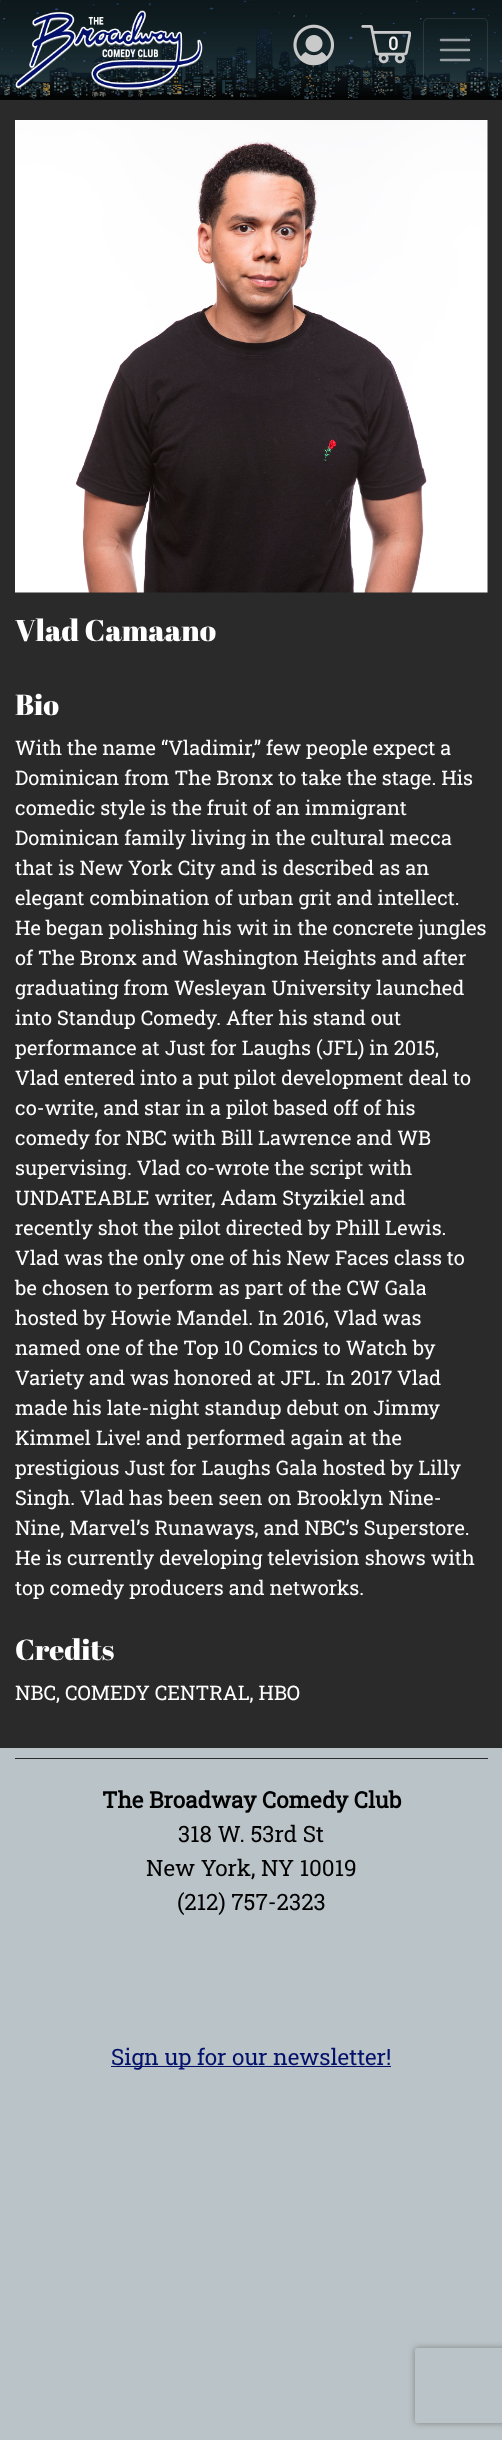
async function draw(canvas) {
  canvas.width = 502
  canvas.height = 2440
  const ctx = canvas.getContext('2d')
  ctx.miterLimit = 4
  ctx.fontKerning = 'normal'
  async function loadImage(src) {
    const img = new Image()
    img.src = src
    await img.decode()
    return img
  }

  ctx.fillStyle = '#bac3c7'
  ctx.fillRect(0, 0, 502, 2440)
  ctx.drawImage(await loadImage('image0.png'), 0, 0, 502, 100)
  ctx.drawImage(await loadImage('image1.png'), 15, 10, 188, 81)
  ctx.drawImage(await loadImage('image2.png'), 293, 24, 42, 42)
  ctx.drawImage(await loadImage('image3.png'), 361, 25, 50, 39)
  ctx.font = 'bold 18px Roboto Slab'
  ctx.fillStyle = '#f0f0f0'
  ctx.fillText('0', 388, 50)
  ctx.beginPath()
  ctx.roundRect(423.5, 18.5, 64, 64, 4.5)
  ctx.strokeStyle = '#ffffff1a'
  ctx.stroke()
  ctx.beginPath()
  ctx.moveTo(441, 40)
  ctx.lineTo(469, 40)
  ctx.moveTo(441, 50)
  ctx.lineTo(469, 50)
  ctx.moveTo(441, 60)
  ctx.lineTo(469, 60)
  ctx.strokeStyle = '#ffffff8c'
  ctx.lineWidth = 2.5
  ctx.lineCap = 'round'
  ctx.stroke()
  ctx.fillStyle = '#2a2a2a'
  ctx.fillRect(0, 100, 502, 1648)
  ctx.drawImage(await loadImage('image4.png'), 15, 120, 473, 473)
  ctx.font = '30px Abril Fatface'
  ctx.fillStyle = '#fff'
  ctx.fillText('Vlad Camaano', 15, 641)
  ctx.font = '29px Abril Fatface'
  ctx.fillText('Bio', 15, 715)
  ctx.font = '20px Roboto Slab'
  ctx.fillText('With the name “Vladimir,” few people expect a', 15, 755)
  ctx.fillText('Dominican from The Bronx to take the stage. His', 15, 785)
  ctx.fillText('comedic style is the fruit of an immigrant', 15, 815)
  ctx.fillText('Dominican family living in the cultural mecca', 15, 845)
  ctx.fillText('that is New York City and is described as an', 15, 875)
  ctx.fillText('elegant combination of urban grit and intellect.', 15, 905)
  ctx.fillText('He began polishing his wit in the concrete jungles', 15, 935)
  ctx.fillText('of The Bronx and Washington Heights and after', 15, 965)
  ctx.fillText('graduating from Wesleyan University launched', 15, 995)
  ctx.fillText('into Standup Comedy. After his stand out', 15, 1025)
  ctx.fillText('performance at Just for Laughs (JFL) in 2015,', 15, 1055)
  ctx.fillText('Vlad entered into a put pilot development deal to', 15, 1085)
  ctx.fillText('co-write, and star in a pilot based off of his', 15, 1115)
  ctx.fillText('comedy for NBC with Bill Lawrence and WB', 15, 1145)
  ctx.fillText('supervising. Vlad co-wrote the script with', 15, 1175)
  ctx.fillText('UNDATEABLE writer, Adam Styzikiel and', 15, 1205)
  ctx.fillText('recently shot the pilot directed by Phill Lewis.', 15, 1235)
  ctx.fillText('Vlad was the only one of his New Faces class to', 15, 1265)
  ctx.fillText('be chosen to perform as part of the CW Gala', 15, 1295)
  ctx.fillText('hosted by Howie Mandel. In 2016, Vlad was', 15, 1325)
  ctx.fillText('named one of the Top 10 Comics to Watch by', 15, 1355)
  ctx.fillText('Variety and was honored at JFL. In 2017 Vlad', 15, 1385)
  ctx.fillText('made his late-night standup debut on Jimmy', 15, 1415)
  ctx.fillText('Kimmel Live! and performed again at the', 15, 1445)
  ctx.fillText('prestigious Just for Laughs Gala hosted by Lilly', 15, 1475)
  ctx.fillText('Singh. Vlad has been seen on Brooklyn Nine-', 15, 1505)
  ctx.fillText('Nine, Marvel’s Runaways, and NBC’s Superstore.', 15, 1535)
  ctx.fillText('He is currently developing television shows with', 15, 1565)
  ctx.fillText('top comedy producers and networks.', 15, 1595)
  ctx.font = '29px Abril Fatface'
  ctx.fillText('Credits', 15, 1660)
  ctx.font = '20px Roboto Slab'
  ctx.fillText('NBC, COMEDY CENTRAL, HBO', 15, 1700)
  ctx.fillStyle = '#2a2a2a'
  ctx.fillRect(15, 1758, 473, 1)
  ctx.font = 'bold 22.5px Roboto Slab'
  ctx.fillStyle = '#000'
  ctx.fillText('The Broadway Comedy Club', 102, 1808)
  ctx.font = '22.5px Roboto Slab'
  ctx.fillText('318 W. 53rd St', 178, 1842)
  ctx.fillText('New York, NY 10019', 146, 1876)
  ctx.fillText('(212) 757-2323', 177, 1910)
  ctx.fillStyle = '#03116a'
  ctx.fillRect(111, 2066, 280, 1)
  ctx.fillText('Sign up for our newsletter!', 111, 2065)
  ctx.save()
  ctx.beginPath()
  ctx.moveTo(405, 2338)
  ctx.lineTo(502, 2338)
  ctx.lineTo(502, 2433)
  ctx.lineTo(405, 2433)
  ctx.closePath()
  ctx.moveTo(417.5, 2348)
  ctx.lineTo(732.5, 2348)
  ctx.bezierCurveTo(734, 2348, 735, 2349, 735, 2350.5)
  ctx.lineTo(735, 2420.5)
  ctx.bezierCurveTo(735, 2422, 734, 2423, 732.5, 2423)
  ctx.lineTo(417.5, 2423)
  ctx.bezierCurveTo(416, 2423, 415, 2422, 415, 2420.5)
  ctx.lineTo(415, 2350.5)
  ctx.bezierCurveTo(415, 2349, 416, 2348, 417.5, 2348)
  ctx.closePath()
  ctx.clip('evenodd')
  ctx.fillStyle = '#808080'
  ctx.filter = 'blur(3px)'
  ctx.beginPath()
  ctx.roundRect(415, 2348, 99, 75, 2.5)
  ctx.fill()
  ctx.filter = 'none'
  ctx.restore()
}

draw(document.querySelector('canvas'))
